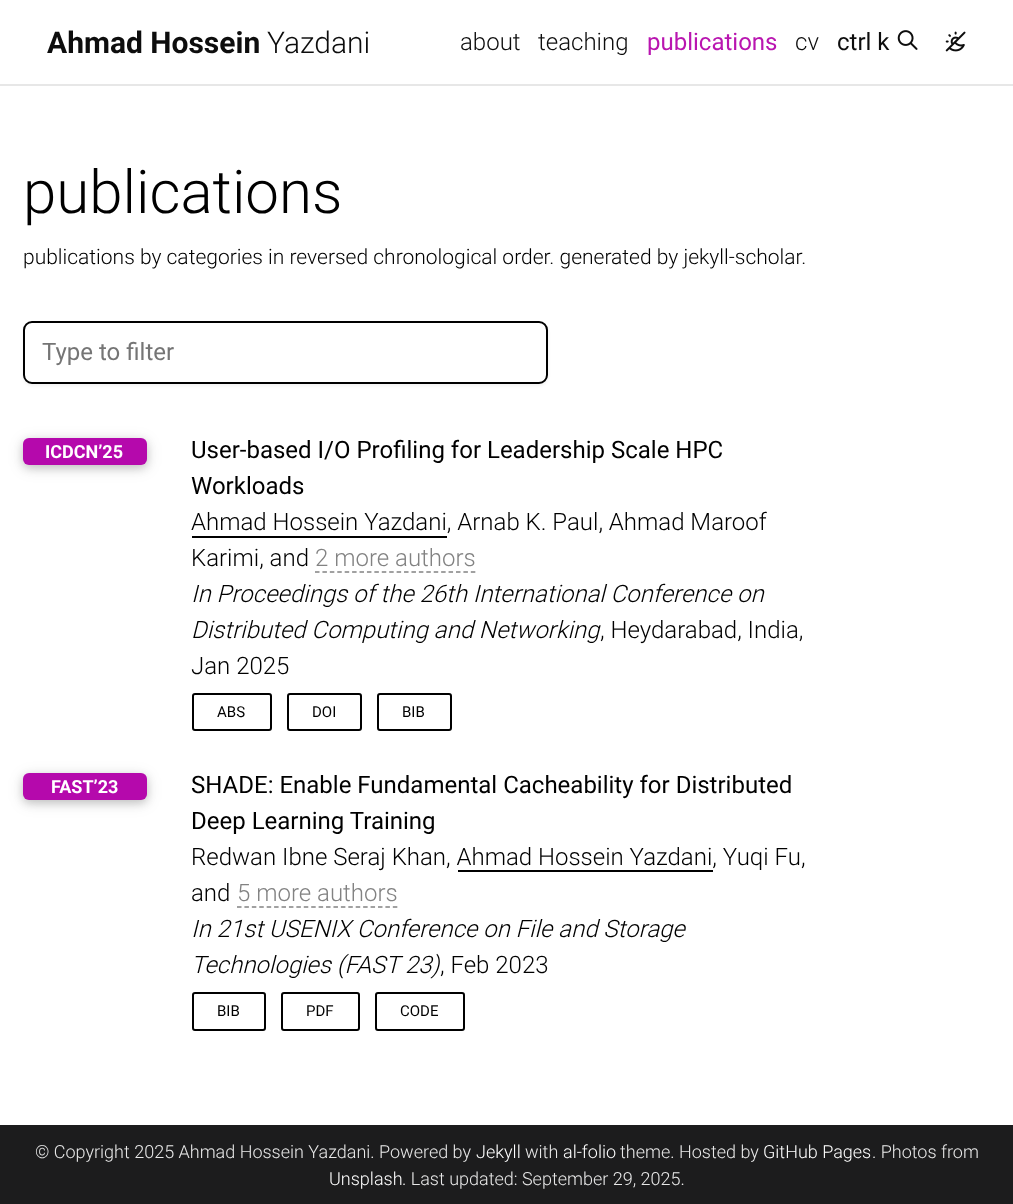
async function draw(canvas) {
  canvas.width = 1013
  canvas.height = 1204
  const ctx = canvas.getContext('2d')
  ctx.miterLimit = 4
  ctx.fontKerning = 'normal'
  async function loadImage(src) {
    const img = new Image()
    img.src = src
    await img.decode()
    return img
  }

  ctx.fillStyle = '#fff'
  ctx.fillRect(0, 0, 1013, 1204)
  ctx.fillStyle = '#e7e7e7'
  ctx.fillRect(0, 84, 1013, 2)
  ctx.font = 'bold 30px Roboto'
  ctx.fillStyle = '#0d0d0d'
  ctx.fillText('Ahmad Hossein', 47, 53)
  ctx.font = '300 30px Roboto'
  ctx.fillText('Yazdani', 267, 53)
  ctx.font = '300 24px Roboto'
  ctx.fillText('about', 460, 50)
  ctx.fillText('teaching', 538, 50)
  ctx.font = '24px Roboto'
  ctx.fillStyle = '#b915b0'
  ctx.fillText('publications', 647, 50)
  ctx.font = '300 24px Roboto'
  ctx.fillStyle = '#0d0d0d'
  ctx.fillText('cv', 795, 50)
  ctx.font = '24px Roboto'
  ctx.fillText('ctrl k', 837, 50)
  ctx.drawImage(await loadImage('image0.png'), 897, 30, 21, 20)
  ctx.drawImage(await loadImage('image1.png'), 945, 31, 21, 21)
  ctx.font = '300 60px Roboto'
  ctx.fillStyle = '#000'
  ctx.fillText('publications', 23, 213)
  ctx.font = '300 21px Roboto'
  ctx.fillText('publications by categories in reversed chronological order. generated by jekyll-scholar.', 23, 264)
  ctx.fillStyle = '#0000000d'
  ctx.filter = 'blur(1.5px)'
  ctx.beginPath()
  ctx.roundRect(23, 323, 525, 63, 9)
  ctx.fill()
  ctx.filter = 'none'
  ctx.fillStyle = '#fff'
  ctx.beginPath()
  ctx.roundRect(24, 322, 523, 61, 8)
  ctx.fill()
  ctx.strokeStyle = '#000'
  ctx.lineWidth = 2
  ctx.stroke()
  ctx.font = '24px Roboto'
  ctx.fillStyle = '#757575'
  ctx.fillText('Type to filter', 42, 360)
  ctx.fillStyle = '#0000001f'
  ctx.filter = 'blur(7.5px)'
  ctx.beginPath()
  ctx.roundRect(23, 441, 124, 27, 6)
  ctx.fill()
  ctx.filter = 'none'
  ctx.fillStyle = '#00000029'
  ctx.filter = 'blur(4px)'
  ctx.beginPath()
  ctx.roundRect(23, 441, 124, 27, 6)
  ctx.fill()
  ctx.filter = 'none'
  ctx.fillStyle = '#b509ac'
  ctx.beginPath()
  ctx.roundRect(23, 438, 124, 27, 6)
  ctx.fill()
  ctx.font = 'bold 18px Roboto'
  ctx.fillStyle = '#fff'
  ctx.fillText('ICDCN’25', 45, 458)
  ctx.font = '24px Roboto'
  ctx.fillStyle = '#000'
  ctx.fillText('User-based I/O Profiling for Leadership Scale HPC', 191, 458)
  ctx.fillText('Workloads', 191, 494)
  ctx.font = '300 24px Roboto'
  ctx.fillText('Ahmad Hossein Yazdani, Arnab K. Paul, Ahmad Maroof', 191, 530)
  ctx.fillRect(192, 536, 255, 2)
  ctx.fillText('Karimi, and', 191, 566)
  ctx.fillStyle = '#828282'
  ctx.fillText('2 more authors', 315, 566)
  ctx.beginPath()
  ctx.moveTo(315, 572)
  ctx.lineTo(475.5, 572)
  ctx.strokeStyle = '#828282'
  ctx.lineWidth = 1.5
  ctx.setLineDash([4.5, 2.92])
  ctx.stroke()
  ctx.font = 'italic 300 24px Roboto'
  ctx.fillStyle = '#000'
  ctx.fillText('In Proceedings of the 26th International Conference on', 191, 602)
  ctx.fillText('Distributed Computing and Networking', 191, 638)
  ctx.font = '300 24px Roboto'
  ctx.fillText(', Heydarabad, India,', 600, 638)
  ctx.fillText('Jan 2025', 191, 674)
  ctx.beginPath()
  ctx.roundRect(193, 694, 78, 36, 2)
  ctx.strokeStyle = '#000'
  ctx.lineWidth = 2
  ctx.setLineDash([])
  ctx.stroke()
  ctx.font = '15px Roboto'
  ctx.fillText('ABS', 217, 717)
  ctx.beginPath()
  ctx.roundRect(288, 694, 73, 36, 2)
  ctx.stroke()
  ctx.fillText('DOI', 312, 717)
  ctx.beginPath()
  ctx.roundRect(378, 694, 73, 36, 2)
  ctx.stroke()
  ctx.fillText('BIB', 402, 717)
  ctx.fillStyle = '#0000001f'
  ctx.filter = 'blur(7.5px)'
  ctx.beginPath()
  ctx.roundRect(23, 776, 124, 27, 6)
  ctx.fill()
  ctx.filter = 'none'
  ctx.fillStyle = '#00000029'
  ctx.filter = 'blur(4px)'
  ctx.beginPath()
  ctx.roundRect(23, 776, 124, 27, 6)
  ctx.fill()
  ctx.filter = 'none'
  ctx.fillStyle = '#b509ac'
  ctx.beginPath()
  ctx.roundRect(23, 773, 124, 27, 6)
  ctx.fill()
  ctx.font = 'bold 18px Roboto'
  ctx.fillStyle = '#fff'
  ctx.fillText('FAST’23', 51, 793)
  ctx.font = '24px Roboto'
  ctx.fillStyle = '#000'
  ctx.fillText('SHADE: Enable Fundamental Cacheability for Distributed', 191, 793)
  ctx.fillText('Deep Learning Training', 191, 829)
  ctx.font = '300 24px Roboto'
  ctx.fillText('Redwan Ibne Seraj Khan, Ahmad Hossein Yazdani, Yuqi Fu,', 191, 865)
  ctx.fillRect(458, 870, 255, 2)
  ctx.fillText('and', 191, 901)
  ctx.fillStyle = '#828282'
  ctx.fillText('5 more authors', 237, 901)
  ctx.beginPath()
  ctx.moveTo(237, 907)
  ctx.lineTo(397.5, 907)
  ctx.strokeStyle = '#828282'
  ctx.lineWidth = 1.5
  ctx.setLineDash([4.5, 2.92])
  ctx.stroke()
  ctx.font = 'italic 300 24px Roboto'
  ctx.fillStyle = '#000'
  ctx.fillText('In 21st USENIX Conference on File and Storage', 191, 937)
  ctx.fillText('Technologies (FAST 23)', 191, 973)
  ctx.font = '300 24px Roboto'
  ctx.fillText(', Feb 2023', 440, 973)
  ctx.beginPath()
  ctx.roundRect(193, 993, 72, 37, 2)
  ctx.strokeStyle = '#000'
  ctx.lineWidth = 2
  ctx.setLineDash([])
  ctx.stroke()
  ctx.font = '15px Roboto'
  ctx.fillText('BIB', 217, 1016)
  ctx.beginPath()
  ctx.roundRect(282, 993, 77, 37, 2)
  ctx.stroke()
  ctx.fillText('PDF', 306, 1016)
  ctx.beginPath()
  ctx.roundRect(376, 993, 88, 37, 2)
  ctx.stroke()
  ctx.fillText('CODE', 400, 1016)
  ctx.fillStyle = '#1c1c1d'
  ctx.fillRect(0, 1125, 1013, 79)
  ctx.font = '300 18px Roboto'
  ctx.fillStyle = '#e8e8e8'
  ctx.fillText('© Copyright 2025 Ahmad Hossein Yazdani. Powered by', 35, 1158)
  ctx.fillStyle = '#fff'
  ctx.fillText('Jekyll', 476, 1158)
  ctx.fillStyle = '#e8e8e8'
  ctx.fillText('with', 525, 1158)
  ctx.fillStyle = '#fff'
  ctx.fillText('al-folio', 563, 1158)
  ctx.fillStyle = '#e8e8e8'
  ctx.fillText('theme. Hosted by', 620, 1158)
  ctx.fillStyle = '#fff'
  ctx.fillText('GitHub Pages', 763, 1158)
  ctx.fillStyle = '#e8e8e8'
  ctx.fillText('. Photos from', 872, 1158)
  ctx.fillStyle = '#fff'
  ctx.fillText('Unsplash', 329, 1185)
  ctx.fillStyle = '#e8e8e8'
  ctx.fillText('. Last updated: September 29, 2025.', 402, 1185)
}

draw(document.querySelector('canvas'))
